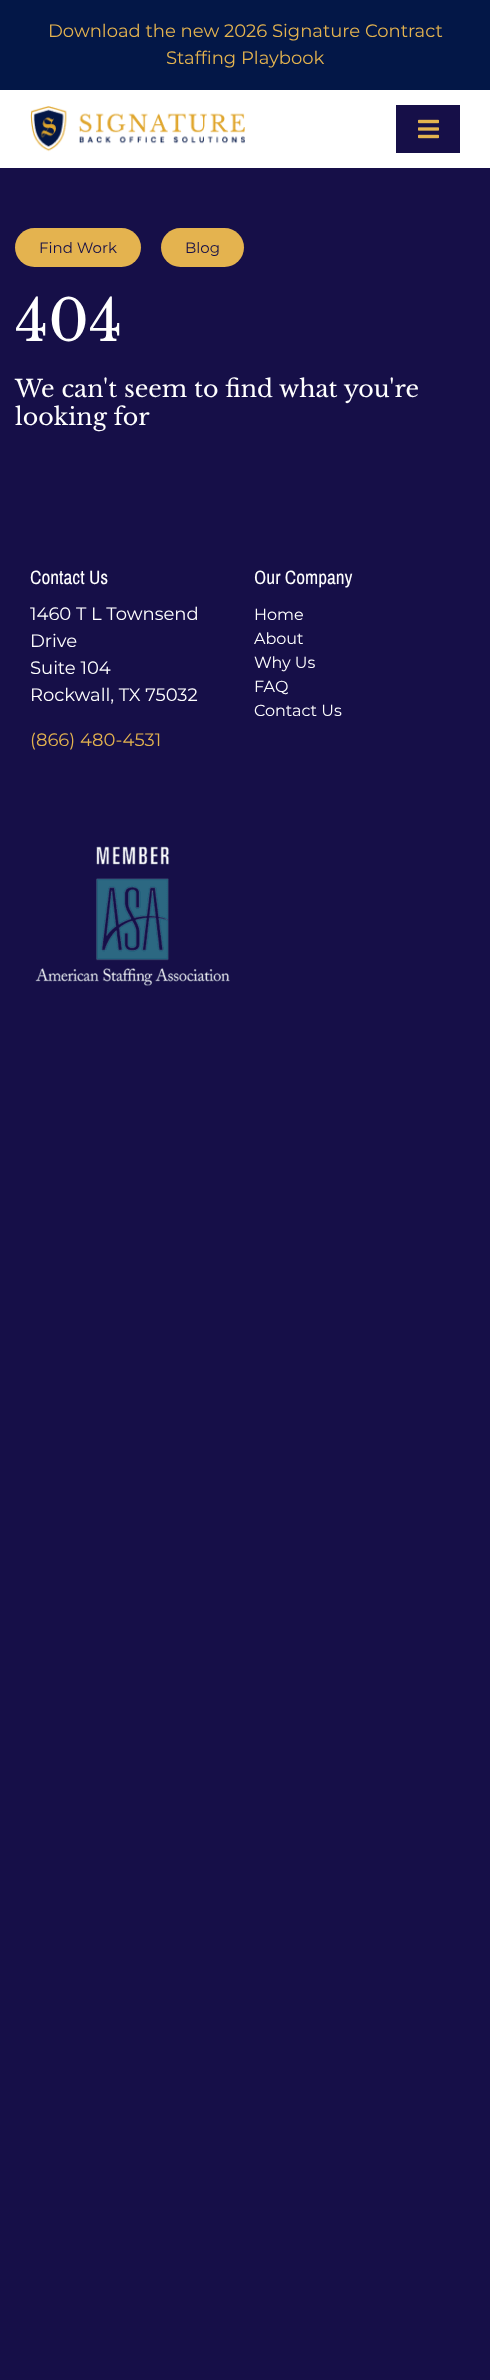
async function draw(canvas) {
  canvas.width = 490
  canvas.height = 2380
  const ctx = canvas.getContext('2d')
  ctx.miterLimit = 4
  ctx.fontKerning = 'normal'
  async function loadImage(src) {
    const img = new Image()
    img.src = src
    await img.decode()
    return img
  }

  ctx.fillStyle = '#160f48'
  ctx.fillRect(0, 0, 490, 2380)
  ctx.fillStyle = '#fff'
  ctx.fillRect(0, 90, 490, 78)
  ctx.fillStyle = '#031747'
  ctx.fillRect(0, 0, 490, 90)
  ctx.font = '18px Montserrat'
  ctx.fillStyle = '#e4b34f'
  ctx.fillText('Download the new 2026 Signature Contract', 48, 37)
  ctx.fillText('Staffing Playbook', 166, 64)
  ctx.drawImage(await loadImage('image0.png'), 30, 106, 215, 46)
  ctx.fillStyle = '#160f48'
  ctx.fillRect(396, 105, 64, 48)
  ctx.drawImage(await loadImage('image1.png'), 418, 119, 21, 20)
  ctx.fillStyle = '#e4b34f'
  ctx.beginPath()
  ctx.roundRect(15, 228, 126, 39, 19.5)
  ctx.fill()
  ctx.font = '15px Montserrat'
  ctx.fillStyle = '#160f48'
  ctx.fillText('Find Work', 39, 253)
  ctx.fillStyle = '#e4b34f'
  ctx.beginPath()
  ctx.roundRect(161, 228, 83, 39, 19.5)
  ctx.fill()
  ctx.fillStyle = '#160f48'
  ctx.fillText('Blog', 185, 253)
  ctx.font = '57px Libre Baskerville'
  ctx.fillStyle = '#fff'
  ctx.fillText('404', 15, 341)
  ctx.font = '23.7px Libre Baskerville'
  ctx.fillText('We can\'t seem to find what you\'re', 15, 397)
  ctx.fillText('looking for', 15, 425)
  ctx.font = '21px Pragati Narrow'
  ctx.fillText('Contact Us', 30, 584)
  ctx.font = '18px Montserrat'
  ctx.fillText('1460 T L Townsend', 30, 620)
  ctx.fillText('Drive', 30, 647)
  ctx.fillText('Suite 104', 30, 674)
  ctx.fillText('Rockwall, TX 75032', 30, 701)
  ctx.fillStyle = '#e4b34f'
  ctx.fillText('(866) 480-4531', 30, 746)
  ctx.font = '21px Pragati Narrow'
  ctx.fillStyle = '#fff'
  ctx.fillText('Our Company', 254, 584)
  ctx.font = '16px Montserrat'
  ctx.fillText('Home', 254, 620)
  ctx.fillText('About', 254, 644)
  ctx.fillText('Why Us', 254, 668)
  ctx.fillText('FAQ', 254, 692)
  ctx.fillText('Contact Us', 254, 716)
  ctx.drawImage(await loadImage('image2.png'), 35, 846, 195, 140)
}

draw(document.querySelector('canvas'))
